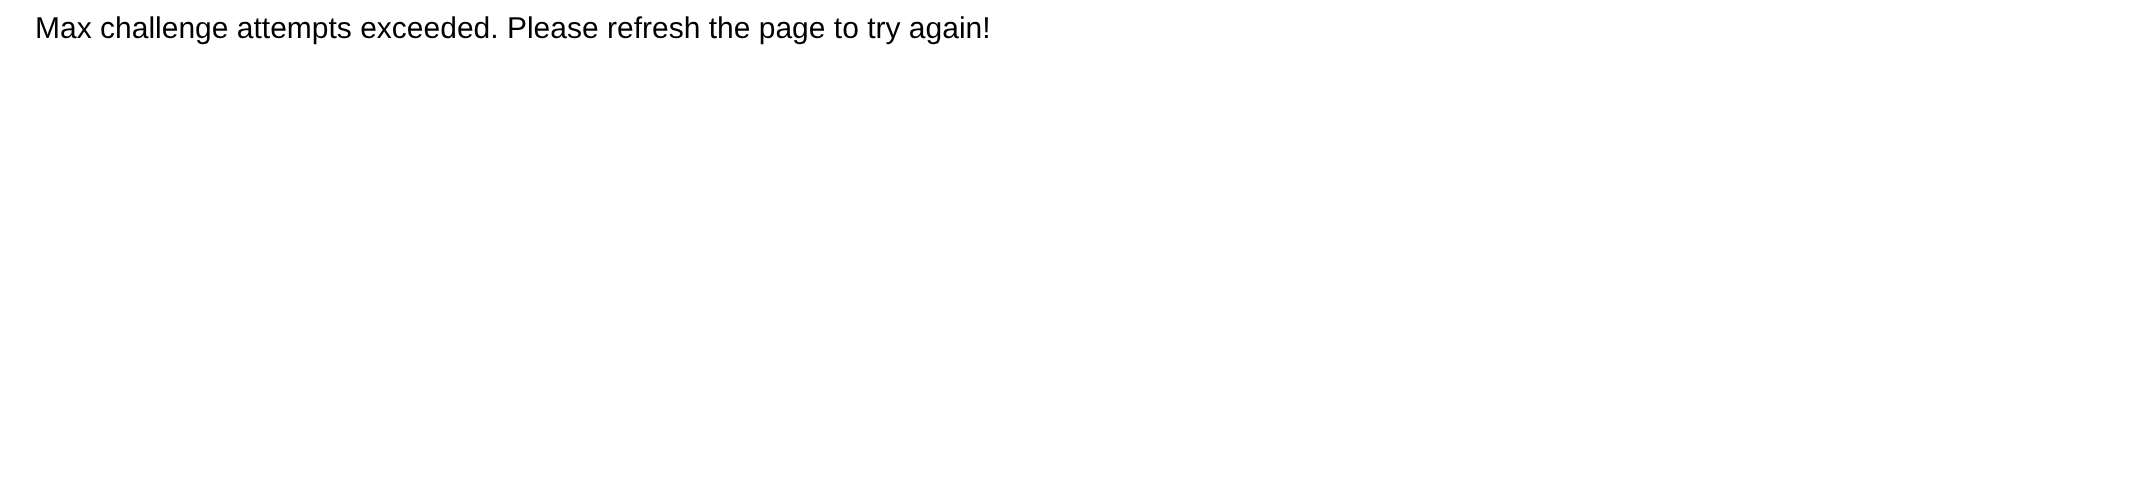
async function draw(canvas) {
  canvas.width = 2135
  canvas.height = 482
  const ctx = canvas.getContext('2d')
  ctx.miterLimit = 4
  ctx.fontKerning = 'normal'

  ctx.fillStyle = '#fff'
  ctx.fillRect(0, 0, 2135, 482)
  ctx.font = '30px Liberation Sans'
  ctx.fillStyle = '#000'
  ctx.fillText('Max challenge attempts exceeded. Please refresh the page to try again!', 35, 38)
}

draw(document.querySelector('canvas'))
